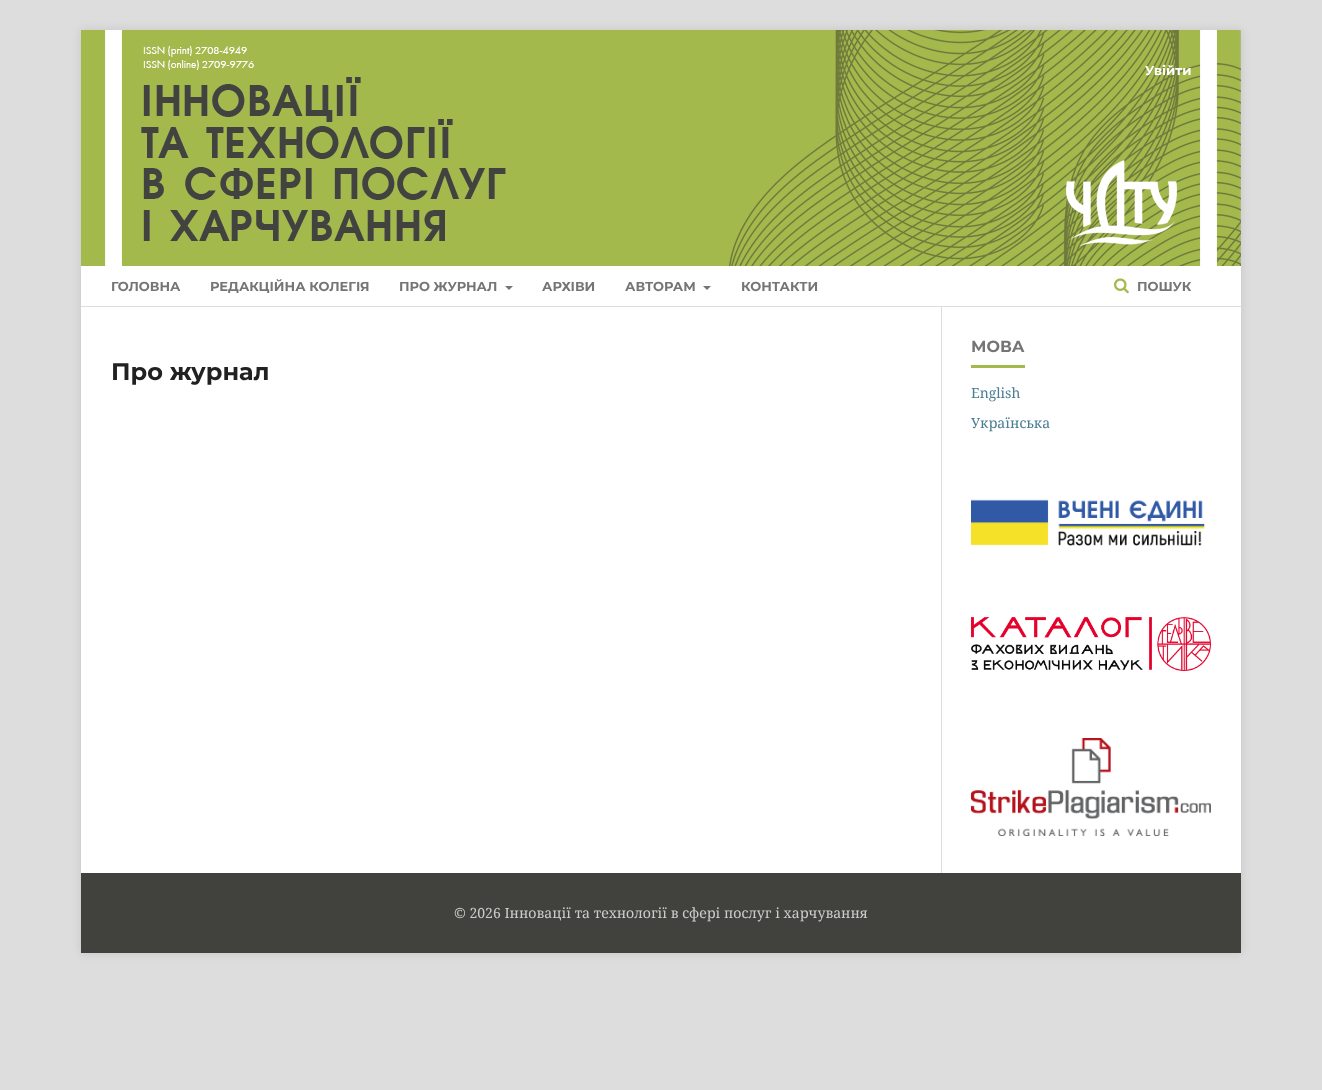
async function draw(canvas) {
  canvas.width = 1322
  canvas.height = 1090
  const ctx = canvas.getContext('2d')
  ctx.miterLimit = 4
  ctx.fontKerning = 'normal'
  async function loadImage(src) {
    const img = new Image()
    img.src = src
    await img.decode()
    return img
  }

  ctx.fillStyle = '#ddd'
  ctx.fillRect(0, 0, 1322, 1090)
  ctx.fillStyle = '#0000001a'
  ctx.filter = 'blur(5px)'
  ctx.beginPath()
  ctx.rect(81, 30, 1160, 923)
  ctx.fill()
  ctx.filter = 'none'
  ctx.fillStyle = '#fff'
  ctx.fillRect(81, 266, 1160, 607)
  ctx.drawImage(await loadImage('image0.png'), 81, 30, 1160, 236)
  ctx.fillStyle = '#ddd'
  ctx.fillRect(81, 306, 1160, 1)
  ctx.font = 'bold 13px Montserrat'
  ctx.fillStyle = '#fff'
  ctx.fillText('Увійти', 1145, 75)
  ctx.fillStyle = '#757575'
  ctx.fillText('ГОЛОВНА', 111, 291)
  ctx.fillText('РЕДАКЦІЙНА КОЛЕГІЯ', 210, 291)
  ctx.fillText('ПРО ЖУРНАЛ', 399, 291)
  ctx.beginPath()
  ctx.moveTo(505, 286)
  ctx.lineTo(513, 286)
  ctx.lineTo(509, 290)
  ctx.closePath()
  ctx.fill()
  ctx.fillText('АРХІВИ', 542, 291)
  ctx.fillText('АВТОРАМ', 625, 291)
  ctx.beginPath()
  ctx.moveTo(703, 286)
  ctx.lineTo(711, 286)
  ctx.lineTo(707, 290)
  ctx.closePath()
  ctx.fill()
  ctx.fillText('КОНТАКТИ', 741, 291)
  ctx.drawImage(await loadImage('image1.png'), 1114, 278, 15, 16)
  ctx.fillText('ПОШУК', 1137, 291)
  ctx.font = 'bold 24px Montserrat'
  ctx.fillStyle = '#212121'
  ctx.fillText('Про журнал', 111, 380)
  ctx.fillStyle = '#ddd'
  ctx.fillRect(941, 307, 1, 566)
  ctx.fillStyle = '#a3b94c'
  ctx.fillRect(971, 365, 54, 3)
  ctx.font = 'bold 16px Montserrat'
  ctx.fillStyle = '#757575'
  ctx.fillText('МОВА', 971, 352)
  ctx.font = '14px Noto Serif'
  ctx.fillStyle = '#4b7d92'
  ctx.fillText('English', 971, 398)
  ctx.fillText('Українська', 971, 428)
  ctx.drawImage(await loadImage('image2.png'), 971, 499, 234, 47)
  ctx.drawImage(await loadImage('image3.png'), 971, 617, 240, 54)
  ctx.drawImage(await loadImage('image4.png'), 971, 738, 240, 98)
  ctx.fillStyle = '#41423d'
  ctx.fillRect(81, 873, 1160, 80)
  ctx.fillStyle = '#ccc'
  ctx.fillText('© 2026 Інновації та технології в сфері послуг і харчування', 454, 918)
}

draw(document.querySelector('canvas'))
